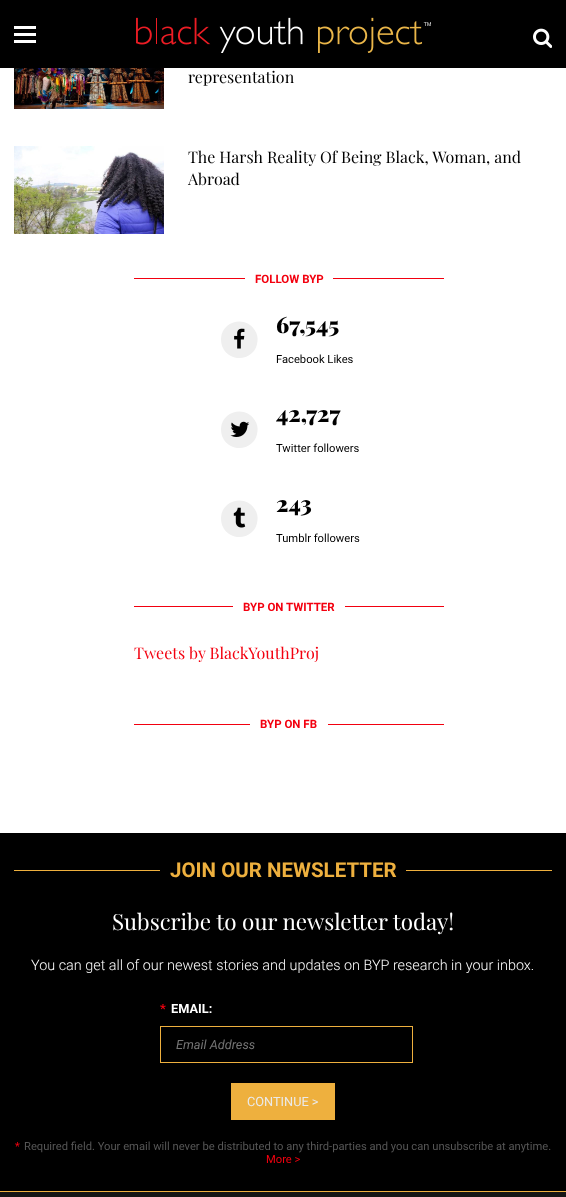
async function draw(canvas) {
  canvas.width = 566
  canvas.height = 1197
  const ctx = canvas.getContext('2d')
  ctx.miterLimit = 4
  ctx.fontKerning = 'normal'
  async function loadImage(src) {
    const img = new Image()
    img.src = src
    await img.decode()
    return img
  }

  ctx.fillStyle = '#fff'
  ctx.fillRect(0, 0, 566, 1197)
  ctx.fillStyle = '#000'
  ctx.fillRect(0, 0, 566, 68)
  ctx.fillStyle = '#fff'
  ctx.fillRect(14, 26, 22, 3)
  ctx.fillRect(14, 33, 22, 3)
  ctx.fillRect(14, 40, 22, 3)
  ctx.drawImage(await loadImage('image0.png'), 136, 17, 295, 36)
  ctx.drawImage(await loadImage('image1.png'), 533, 28, 19, 20)
  ctx.drawImage(await loadImage('image2.png'), 14, 68, 150, 41)
  ctx.font = '16px Playfair Display'
  ctx.fillStyle = '#000'
  ctx.fillText('representation', 188, 83)
  ctx.drawImage(await loadImage('image3.png'), 14, 146, 150, 88)
  ctx.fillText('The Harsh Reality Of Being Black, Woman, and', 188, 163)
  ctx.fillText('Abroad', 188, 185)
  ctx.fillStyle = '#f2000f'
  ctx.fillRect(134, 278, 310, 1)
  ctx.fillStyle = '#fff'
  ctx.fillRect(245, 278, 88, 1)
  ctx.font = 'bold 11.5px Roboto'
  ctx.fillStyle = '#f3000f'
  ctx.fillText('FOLLOW BYP', 255, 283)
  ctx.fillStyle = '#efefef'
  ctx.beginPath()
  ctx.moveTo(255, 330.5)
  ctx.bezierCurveTo(257, 333.5, 258, 337.5, 257.5, 341)
  ctx.bezierCurveTo(256.5, 359, 232.5, 364.5, 223.5, 349)
  ctx.bezierCurveTo(221.5, 346, 221, 342, 221, 338.5)
  ctx.bezierCurveTo(222, 320.5, 246, 315, 255, 330.5)
  ctx.closePath()
  ctx.fill()
  ctx.drawImage(await loadImage('image4.png'), 234, 328, 11, 21)
  ctx.font = '900 22.4px Playfair Display'
  ctx.fillStyle = '#000'
  ctx.fillText('67,545', 276, 333)
  ctx.font = '11.2px Roboto'
  ctx.fillText('Facebook Likes', 276, 363)
  ctx.fillStyle = '#efefef'
  ctx.beginPath()
  ctx.moveTo(255, 420.5)
  ctx.bezierCurveTo(257, 423.5, 258, 427.5, 257.5, 431)
  ctx.bezierCurveTo(256.5, 449, 232.5, 454.5, 223.5, 439)
  ctx.bezierCurveTo(221.5, 436, 221, 432, 221, 428.5)
  ctx.bezierCurveTo(222, 410.5, 246, 405, 255, 420.5)
  ctx.closePath()
  ctx.fill()
  ctx.drawImage(await loadImage('image5.png'), 230, 421, 20, 16)
  ctx.font = '900 22.4px Playfair Display'
  ctx.fillStyle = '#000'
  ctx.fillText('42,727', 276, 422)
  ctx.font = '11.2px Roboto'
  ctx.fillText('Twitter followers', 276, 452)
  ctx.fillStyle = '#efefef'
  ctx.beginPath()
  ctx.moveTo(255, 509.5)
  ctx.bezierCurveTo(257, 512.5, 258, 516.5, 257.5, 520)
  ctx.bezierCurveTo(256.5, 538, 232.5, 543.5, 223.5, 528)
  ctx.bezierCurveTo(221.5, 525, 221, 521, 221, 517.5)
  ctx.bezierCurveTo(222, 499.5, 246, 494, 255, 509.5)
  ctx.closePath()
  ctx.fill()
  ctx.drawImage(await loadImage('image6.png'), 233, 507, 13, 21)
  ctx.font = '900 22.4px Playfair Display'
  ctx.fillStyle = '#000'
  ctx.fillText('243', 276, 512)
  ctx.font = '11.2px Roboto'
  ctx.fillText('Tumblr followers', 276, 542)
  ctx.fillStyle = '#f2000f'
  ctx.fillRect(134, 606, 310, 1)
  ctx.fillStyle = '#fff'
  ctx.fillRect(233, 606, 112, 1)
  ctx.font = 'bold 11.5px Roboto'
  ctx.fillStyle = '#f3000f'
  ctx.fillText('BYP ON TWITTER', 243, 611)
  ctx.font = '16px Playfair Display'
  ctx.fillText('Tweets by BlackYouthProj', 134, 659)
  ctx.fillStyle = '#f2000f'
  ctx.fillRect(134, 724, 310, 1)
  ctx.fillStyle = '#fff'
  ctx.fillRect(250, 724, 78, 1)
  ctx.font = 'bold 11.5px Roboto'
  ctx.fillStyle = '#f3000f'
  ctx.fillText('BYP ON FB', 260, 728)
  ctx.fillStyle = '#000'
  ctx.fillRect(0, 833, 566, 358)
  ctx.fillStyle = '#eeb03e'
  ctx.fillRect(14, 870, 538, 1)
  ctx.fillStyle = '#000'
  ctx.fillRect(160, 870, 246, 1)
  ctx.font = 'bold 20.5px Roboto'
  ctx.fillStyle = '#eeb03e'
  ctx.fillText('JOIN OUR NEWSLETTER', 170, 877)
  ctx.font = '22.4px Playfair Display'
  ctx.fillStyle = '#fff'
  ctx.fillText('Subscribe to our newsletter today!', 112, 930)
  ctx.font = '300 14.4px Roboto'
  ctx.fillText('You can get all of our newest stories and updates on BYP research in your inbox.', 31, 970)
  ctx.font = 'bold 12.75px Roboto'
  ctx.fillStyle = '#f3000f'
  ctx.fillText('*', 160, 1013)
  ctx.fillStyle = '#fff'
  ctx.fillText('EMAIL:', 171, 1013)
  ctx.strokeStyle = '#eeb03e'
  ctx.strokeRect(160.5, 1026.5, 252, 36)
  ctx.font = 'italic 12.75px Roboto'
  ctx.fillStyle = '#757575'
  ctx.fillText('Email Address', 176, 1049)
  ctx.fillStyle = '#eeb03e'
  ctx.fillRect(231, 1083, 104, 37)
  ctx.font = '12.75px Roboto'
  ctx.fillStyle = '#eaeaea'
  ctx.fillText('CONTINUE >', 247, 1106)
  ctx.font = '11.2px Roboto'
  ctx.fillStyle = '#f3000f'
  ctx.fillText('*', 15, 1150)
  ctx.fillStyle = '#565656'
  ctx.fillText('Required field. Your email will never be distributed to any third-parties and you can unsubscribe at anytime.', 24, 1150)
  ctx.fillStyle = '#f3000f'
  ctx.fillText('More >', 266, 1163)
  ctx.fillStyle = '#151515'
  ctx.fillRect(0, 1192, 566, 5)
  ctx.fillStyle = '#eeb03e'
  ctx.fillRect(0, 1191, 566, 1)
}

draw(document.querySelector('canvas'))
